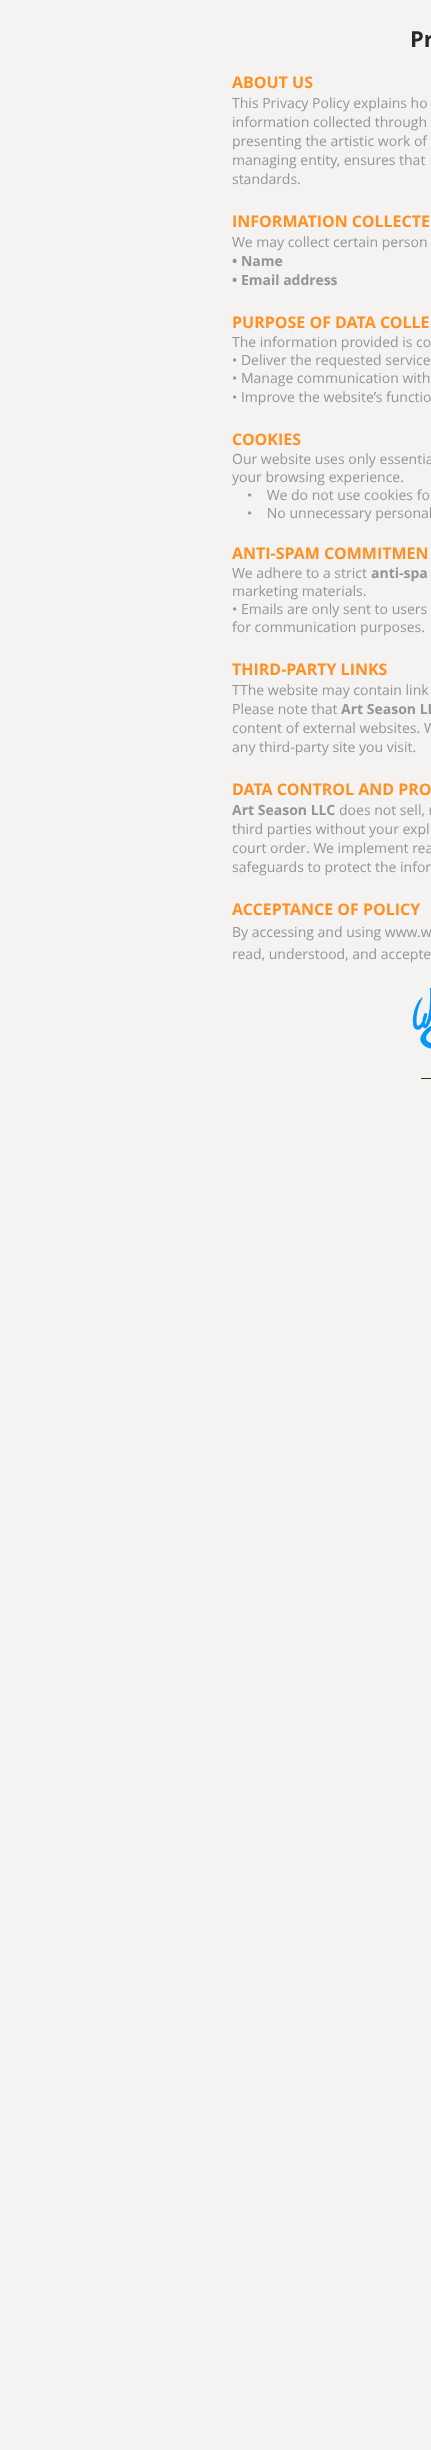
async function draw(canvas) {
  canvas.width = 431
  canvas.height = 2450
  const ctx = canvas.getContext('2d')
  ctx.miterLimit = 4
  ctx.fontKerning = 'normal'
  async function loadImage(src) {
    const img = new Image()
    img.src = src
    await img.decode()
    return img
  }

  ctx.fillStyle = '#f4f3f2'
  ctx.fillRect(0, 0, 431, 2450)
  ctx.font = 'bold 22px Open Sans'
  ctx.fillStyle = '#292929'
  ctx.fillText('Pr', 410, 47)
  ctx.font = 'bold 16px Open Sans'
  ctx.fillStyle = '#ff9124'
  ctx.fillText('ABOUT US', 232, 88)
  ctx.font = '14px Open Sans'
  ctx.fillStyle = '#959595'
  ctx.fillText('This Privacy Policy explains ho', 232, 108)
  ctx.fillText('information collected through', 232, 127)
  ctx.fillText('presenting the artistic work of', 232, 146)
  ctx.fillText('managing entity, ensures that', 232, 165)
  ctx.fillText('standards.', 232, 184)
  ctx.font = 'bold 16px Open Sans'
  ctx.fillStyle = '#ff9124'
  ctx.fillText('INFORMATION COLLECTE', 232, 227)
  ctx.font = '14px Open Sans'
  ctx.fillStyle = '#959595'
  ctx.fillText('We may collect certain person', 232, 247)
  ctx.font = 'bold 14px Open Sans'
  ctx.fillText('• Name', 232, 266)
  ctx.fillText('• Email address', 232, 285)
  ctx.font = 'bold 16px Open Sans'
  ctx.fillStyle = '#ff9124'
  ctx.fillText('PURPOSE OF DATA COLLE', 232, 328)
  ctx.font = '14px Open Sans'
  ctx.fillStyle = '#959595'
  ctx.fillText('The information provided is co', 232, 347)
  ctx.fillText('• Deliver the requested service', 232, 365)
  ctx.fillText('• Manage communication with', 232, 383)
  ctx.fillText('• Improve the website’s functio', 232, 402)
  ctx.font = 'bold 16px Open Sans'
  ctx.fillStyle = '#ff9124'
  ctx.fillText('COOKIES', 232, 445)
  ctx.font = '14px Open Sans'
  ctx.fillStyle = '#959595'
  ctx.fillText('Our website uses only essentia', 232, 464)
  ctx.fillText('your browsing experience.', 232, 482)
  ctx.fillText('•    We do not use cookies fo', 247, 500)
  ctx.fillText('•    No unnecessary personal', 247, 518)
  ctx.font = 'bold 16px Open Sans'
  ctx.fillStyle = '#ff9124'
  ctx.fillText('ANTI-SPAM COMMITMEN', 232, 559)
  ctx.font = '14px Open Sans'
  ctx.fillStyle = '#959595'
  ctx.fillText('We adhere to a strict', 232, 578)
  ctx.font = 'bold 14px Open Sans'
  ctx.fillText('anti-spa', 371, 578)
  ctx.font = '14px Open Sans'
  ctx.fillText('marketing materials.', 232, 596)
  ctx.fillText('• Emails are only sent to users', 232, 614)
  ctx.fillText('for communication purposes.', 232, 632)
  ctx.font = 'bold 16px Open Sans'
  ctx.fillStyle = '#ff9124'
  ctx.fillText('THIRD-PARTY LINKS', 232, 675)
  ctx.font = '14px Open Sans'
  ctx.fillStyle = '#959595'
  ctx.fillText('TThe website may contain link', 232, 695)
  ctx.fillText('Please note that', 232, 714)
  ctx.font = 'bold 14px Open Sans'
  ctx.fillText('Art Season LL', 341, 714)
  ctx.font = '14px Open Sans'
  ctx.fillText('content of external websites. W', 232, 733)
  ctx.fillText('any third-party site you visit.', 232, 752)
  ctx.font = 'bold 16px Open Sans'
  ctx.fillStyle = '#ff9124'
  ctx.fillText('DATA CONTROL AND PRO', 232, 795)
  ctx.font = 'bold 14px Open Sans'
  ctx.fillStyle = '#959595'
  ctx.fillText('Art Season LLC', 232, 815)
  ctx.font = '14px Open Sans'
  ctx.fillText('does not sell, r', 339, 815)
  ctx.fillText('third parties without your expl', 232, 834)
  ctx.fillText('court order. We implement rea', 232, 853)
  ctx.fillText('safeguards to protect the infor', 232, 872)
  ctx.font = 'bold 16px Open Sans'
  ctx.fillStyle = '#ff9124'
  ctx.fillText('ACCEPTANCE OF POLICY', 232, 915)
  ctx.font = '14px Open Sans'
  ctx.fillStyle = '#959595'
  ctx.fillText('By accessing and using www.w', 232, 937)
  ctx.fillText('read, understood, and accepte', 232, 959)
  ctx.drawImage(await loadImage('image0.png'), 412, 987, 19, 62)
  ctx.fillStyle = '#0c4426'
  ctx.fillRect(421, 1078, 10, 1)
}

draw(document.querySelector('canvas'))
